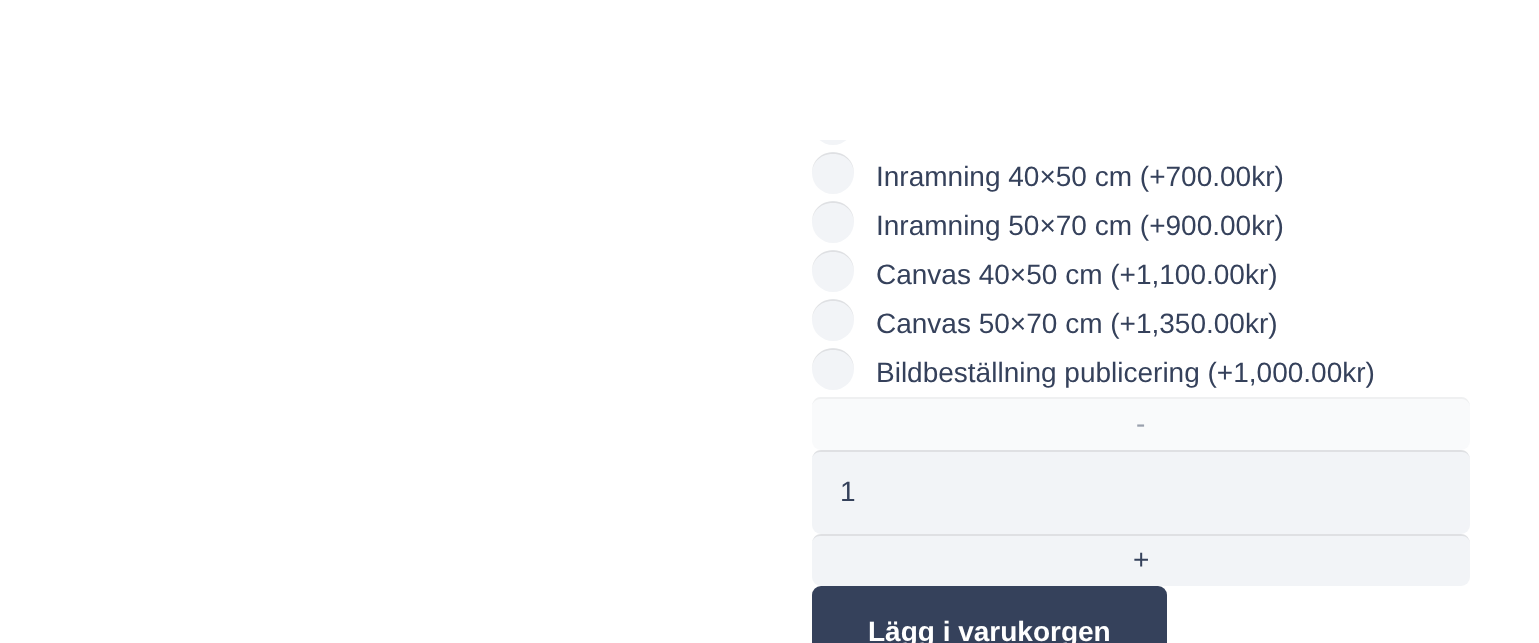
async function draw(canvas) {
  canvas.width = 1539
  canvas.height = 643
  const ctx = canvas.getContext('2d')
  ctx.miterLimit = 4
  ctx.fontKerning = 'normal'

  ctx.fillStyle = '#fff'
  ctx.fillRect(0, 0, 1539, 643)
  ctx.fillStyle = '#f2f4f7'
  ctx.beginPath()
  ctx.arc(833, 124, 21, 0, 2 * Math.PI)
  ctx.fill()
  ctx.fillStyle = '#fff'
  ctx.fillRect(812, 103, 42, 37)
  ctx.fillStyle = '#f2f4f7'
  ctx.beginPath()
  ctx.arc(833, 173, 21, 0, 2 * Math.PI)
  ctx.fill()
  ctx.fillStyle = '#00000014'
  ctx.beginPath()
  ctx.moveTo(833, 154)
  ctx.bezierCurveTo(847, 154, 854, 164, 854, 174)
  ctx.bezierCurveTo(855, 145, 811, 145, 812, 174)
  ctx.bezierCurveTo(812, 164, 819, 154, 833, 154)
  ctx.closePath()
  ctx.fill()
  ctx.font = '28px Liberation Sans'
  ctx.fillStyle = '#35415b'
  ctx.fillText('Inramning 40×50 cm (+700.00kr)', 876, 186)
  ctx.fillStyle = '#f2f4f7'
  ctx.beginPath()
  ctx.arc(833, 222, 21, 0, 2 * Math.PI)
  ctx.fill()
  ctx.fillStyle = '#00000014'
  ctx.beginPath()
  ctx.moveTo(833, 203)
  ctx.bezierCurveTo(847, 203, 854, 213, 854, 223)
  ctx.bezierCurveTo(855, 194, 811, 194, 812, 223)
  ctx.bezierCurveTo(812, 213, 819, 203, 833, 203)
  ctx.closePath()
  ctx.fill()
  ctx.fillStyle = '#35415b'
  ctx.fillText('Inramning 50×70 cm (+900.00kr)', 876, 235)
  ctx.fillStyle = '#f2f4f7'
  ctx.beginPath()
  ctx.arc(833, 271, 21, 0, 2 * Math.PI)
  ctx.fill()
  ctx.fillStyle = '#00000014'
  ctx.beginPath()
  ctx.moveTo(833, 252)
  ctx.bezierCurveTo(847, 252, 854, 262, 854, 272)
  ctx.bezierCurveTo(855, 243, 811, 243, 812, 272)
  ctx.bezierCurveTo(812, 262, 819, 252, 833, 252)
  ctx.closePath()
  ctx.fill()
  ctx.fillStyle = '#35415b'
  ctx.fillText('Canvas 40×50 cm (+1,100.00kr)', 876, 284)
  ctx.fillStyle = '#f2f4f7'
  ctx.beginPath()
  ctx.arc(833, 320, 21, 0, 2 * Math.PI)
  ctx.fill()
  ctx.fillStyle = '#00000014'
  ctx.beginPath()
  ctx.moveTo(833, 301)
  ctx.bezierCurveTo(847, 301, 854, 311, 854, 321)
  ctx.bezierCurveTo(855, 292, 811, 292, 812, 321)
  ctx.bezierCurveTo(812, 311, 819, 301, 833, 301)
  ctx.closePath()
  ctx.fill()
  ctx.fillStyle = '#35415b'
  ctx.fillText('Canvas 50×70 cm (+1,350.00kr)', 876, 333)
  ctx.fillStyle = '#f2f4f7'
  ctx.beginPath()
  ctx.arc(833, 369, 21, 0, 2 * Math.PI)
  ctx.fill()
  ctx.fillStyle = '#00000014'
  ctx.beginPath()
  ctx.moveTo(833, 350)
  ctx.bezierCurveTo(847, 350, 854, 360, 854, 370)
  ctx.bezierCurveTo(855, 341, 811, 341, 812, 370)
  ctx.bezierCurveTo(812, 360, 819, 350, 833, 350)
  ctx.closePath()
  ctx.fill()
  ctx.fillStyle = '#35415b'
  ctx.fillText('Bildbeställning publicering (+1,000.00kr)', 876, 382)
  ctx.fillStyle = '#f9fafb'
  ctx.beginPath()
  ctx.roundRect(812, 397, 658, 53, 9)
  ctx.fill()
  ctx.fillStyle = '#eff0f1'
  ctx.beginPath()
  ctx.moveTo(820, 399)
  ctx.lineTo(1462, 399)
  ctx.bezierCurveTo(1466, 399, 1470, 403, 1470, 407)
  ctx.bezierCurveTo(1470, 402, 1467, 397, 1461, 397)
  ctx.lineTo(821, 397)
  ctx.bezierCurveTo(815, 397, 812, 402, 812, 407)
  ctx.bezierCurveTo(812, 403, 816, 399, 820, 399)
  ctx.closePath()
  ctx.fill()
  ctx.fillStyle = '#9aa0ad'
  ctx.fillText('-', 1136, 433)
  ctx.fillStyle = '#f2f4f7'
  ctx.beginPath()
  ctx.roundRect(812, 450, 658, 84, 9)
  ctx.fill()
  ctx.fillStyle = '#00000014'
  ctx.beginPath()
  ctx.moveTo(820, 452)
  ctx.lineTo(1462, 452)
  ctx.bezierCurveTo(1466, 452, 1470, 455, 1470, 460)
  ctx.bezierCurveTo(1470, 455, 1467, 450, 1461, 450)
  ctx.lineTo(821, 450)
  ctx.bezierCurveTo(815, 450, 812, 455, 812, 460)
  ctx.bezierCurveTo(812, 455, 816, 452, 820, 452)
  ctx.closePath()
  ctx.fill()
  ctx.fillStyle = '#35415b'
  ctx.fillText('1', 840, 501)
  ctx.fillStyle = '#f2f4f7'
  ctx.beginPath()
  ctx.roundRect(812, 534, 658, 52, 9)
  ctx.fill()
  ctx.fillStyle = '#00000014'
  ctx.beginPath()
  ctx.moveTo(820, 536)
  ctx.lineTo(1462, 536)
  ctx.bezierCurveTo(1466, 536, 1470, 539, 1470, 544)
  ctx.bezierCurveTo(1470, 539, 1467, 534, 1461, 534)
  ctx.lineTo(821, 534)
  ctx.bezierCurveTo(815, 534, 812, 539, 812, 544)
  ctx.bezierCurveTo(812, 539, 816, 536, 820, 536)
  ctx.closePath()
  ctx.fill()
  ctx.fillStyle = '#35415b'
  ctx.fillText('+', 1133, 569)
  ctx.beginPath()
  ctx.roundRect(812, 586, 355, 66, 9)
  ctx.fill()
  ctx.font = 'bold 28px Liberation Sans'
  ctx.fillStyle = '#fff'
  ctx.fillText('Lägg i varukorgen', 868, 641)
}

draw(document.querySelector('canvas'))
